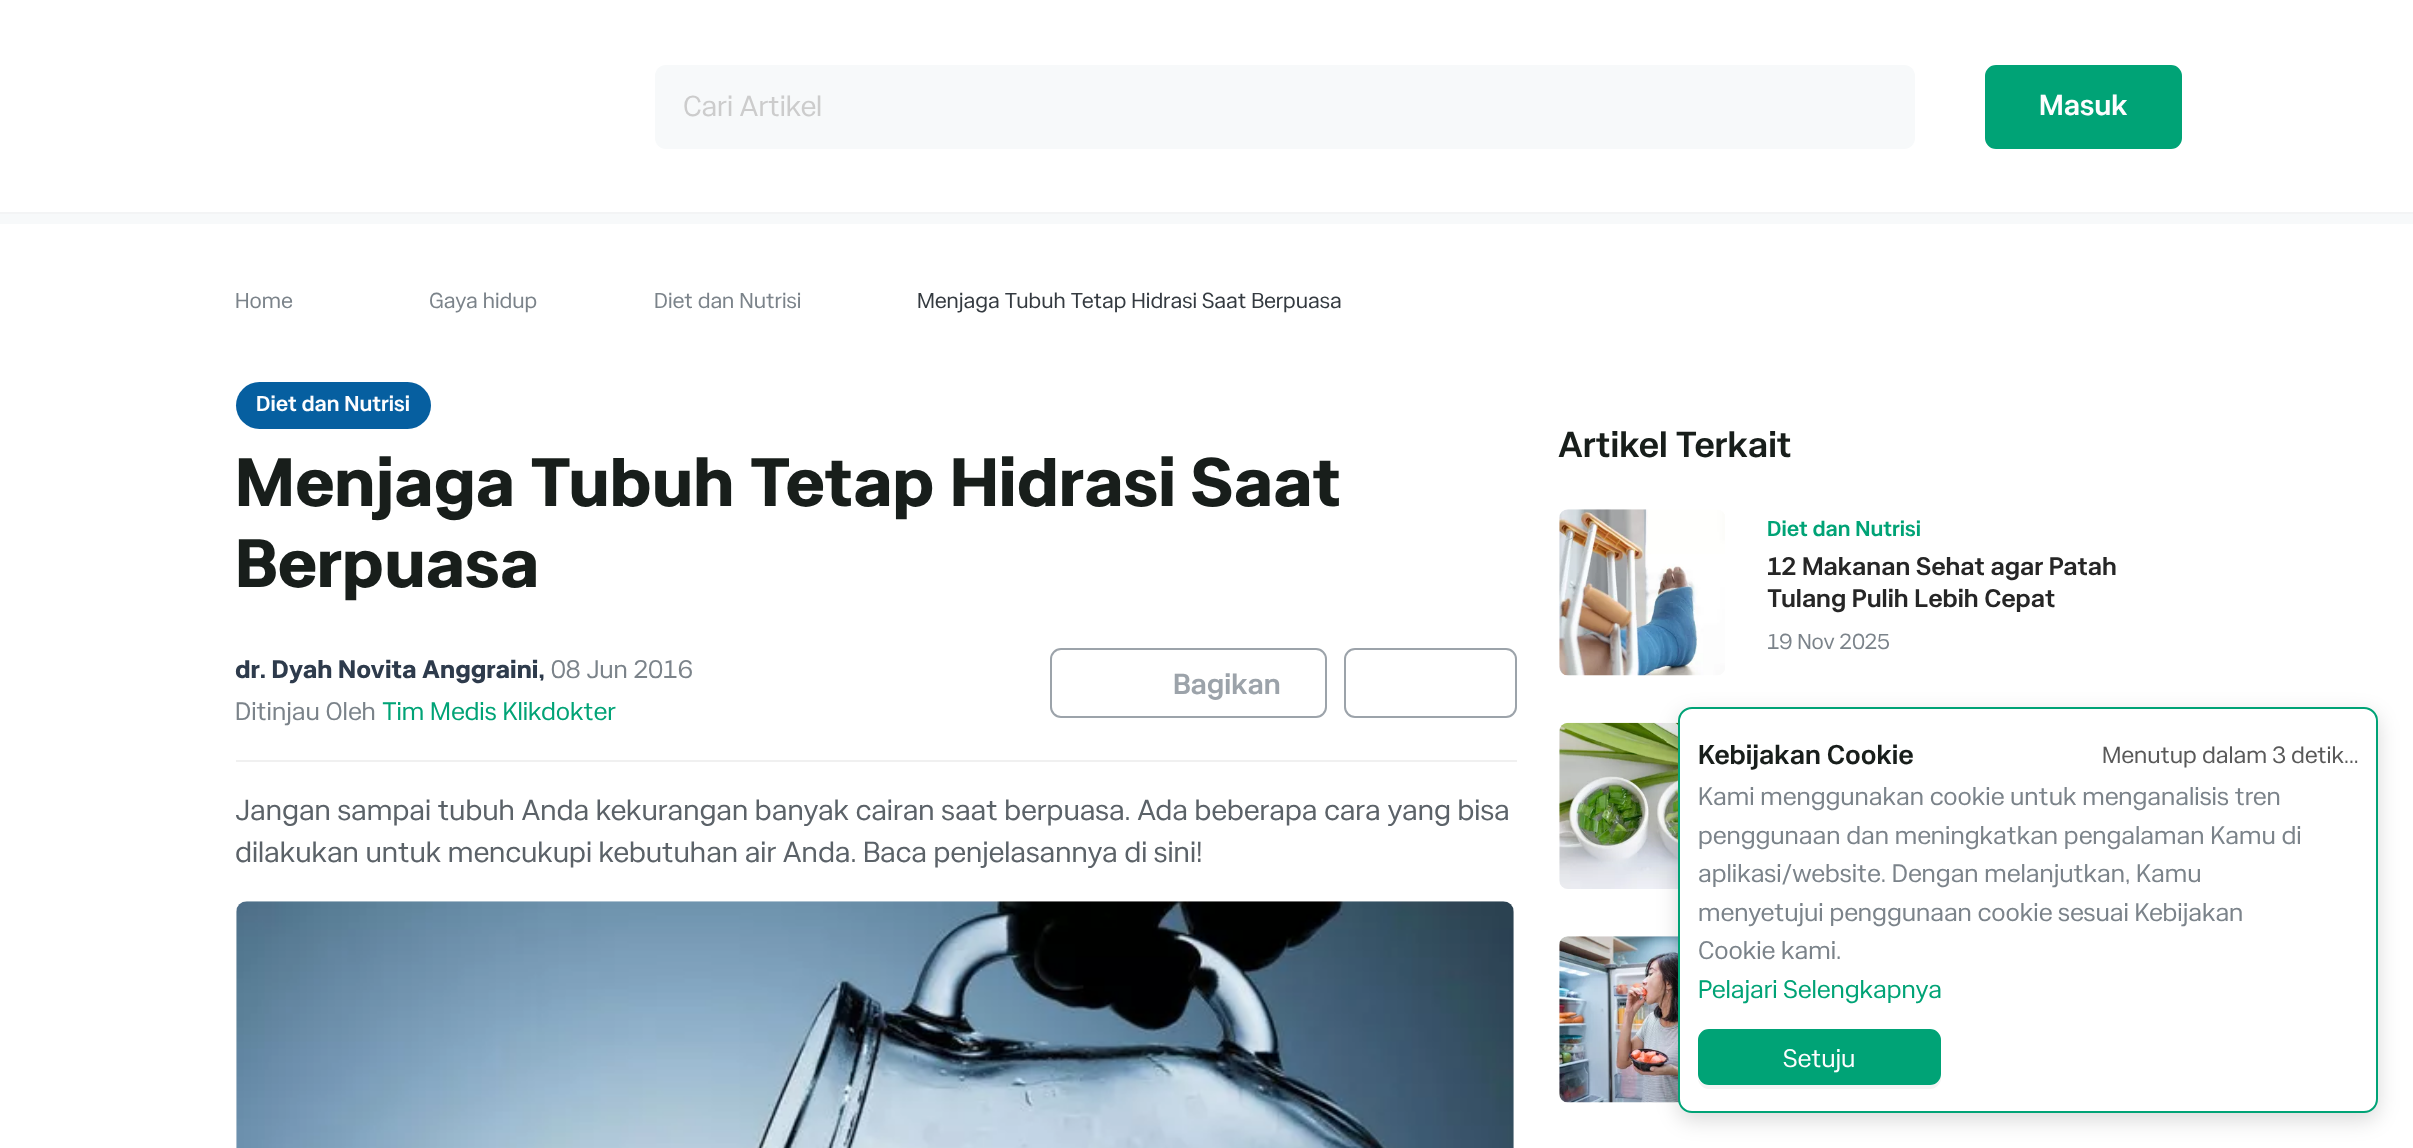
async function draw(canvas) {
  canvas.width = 2413
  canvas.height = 1148
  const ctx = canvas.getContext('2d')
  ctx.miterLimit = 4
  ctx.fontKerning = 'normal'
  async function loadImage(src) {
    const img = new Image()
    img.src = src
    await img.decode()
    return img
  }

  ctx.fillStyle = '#f7f9fa'
  ctx.fillRect(0, 0, 2413, 1148)
  ctx.fillStyle = '#fff'
  ctx.fillRect(0, 0, 2413, 212)
  ctx.fillStyle = '#f3f4f5'
  ctx.fillRect(0, 212, 2413, 2)
  ctx.fillStyle = '#f7f9fa'
  ctx.beginPath()
  ctx.roundRect(655, 65, 1260, 84, 11)
  ctx.fill()
  ctx.font = '28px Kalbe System'
  ctx.fillStyle = '#ccc'
  ctx.fillText('Cari Artikel', 683, 116)
  ctx.fillStyle = '#00a376'
  ctx.beginPath()
  ctx.roundRect(1986, 66, 195, 82, 10)
  ctx.fill()
  ctx.strokeStyle = '#00a376'
  ctx.lineWidth = 2
  ctx.stroke()
  ctx.font = '600 28px Kalbe System'
  ctx.fillStyle = '#fdfdfe'
  ctx.fillText('Masuk', 2039, 115)
  ctx.fillStyle = '#fff'
  ctx.fillRect(0, 224, 2413, 924)
  ctx.font = '21px Kalbe System'
  ctx.fillStyle = '#7b838a'
  ctx.fillText('Home', 235, 308)
  ctx.fillText('Gaya hidup', 429, 308)
  ctx.fillText('Diet dan Nutrisi', 654, 308)
  ctx.fillStyle = '#343a40'
  ctx.fillText('Menjaga Tubuh Tetap Hidrasi Saat Berpuasa', 917, 308)
  ctx.fillStyle = '#065fa0'
  ctx.beginPath()
  ctx.roundRect(236, 382, 195, 47, 23.5)
  ctx.fill()
  ctx.font = '600 21px Kalbe System'
  ctx.fillStyle = '#fdfdfe'
  ctx.fillText('Diet dan Nutrisi', 256, 411)
  ctx.font = 'bold 66.5px Kalbe System'
  ctx.fillStyle = '#181e1b'
  ctx.fillText('Menjaga Tubuh Tetap Hidrasi Saat', 235, 506)
  ctx.fillText('Berpuasa', 235, 587)
  ctx.font = 'bold 24.5px Kalbe System'
  ctx.fillStyle = '#2e3b4c'
  ctx.fillText('dr. Dyah Novita Anggraini,', 235, 678)
  ctx.font = '24.5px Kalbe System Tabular'
  ctx.fillStyle = '#7b838a'
  ctx.fillText('08 Jun 2016', 551, 678)
  ctx.font = '24.5px Kalbe System'
  ctx.fillText('Ditinjau Oleh', 235, 720)
  ctx.fillStyle = '#00a376'
  ctx.fillText('Tim Medis Klikdokter', 382, 720)
  ctx.beginPath()
  ctx.roundRect(1051, 649, 275, 68, 10)
  ctx.strokeStyle = '#9ca3aa'
  ctx.stroke()
  ctx.font = '600 28px Kalbe System'
  ctx.fillStyle = '#9ca3aa'
  ctx.fillText('Bagikan', 1173, 694)
  ctx.beginPath()
  ctx.roundRect(1345, 649, 171, 68, 10)
  ctx.stroke()
  ctx.fillStyle = '#f0f0f0'
  ctx.fillRect(236, 760, 1281, 2)
  ctx.font = '28px Kalbe System'
  ctx.fillStyle = '#5b6268'
  ctx.fillText('Jangan sampai tubuh Anda kekurangan banyak cairan saat berpuasa. Ada beberapa cara yang bisa', 235, 820)
  ctx.fillText('dilakukan untuk mencukupi kebutuhan air Anda. Baca penjelasannya di sini!', 235, 862)
  ctx.drawImage(await loadImage('image0.png'), 236, 901, 1278, 247)
  ctx.font = '600 35px Kalbe System'
  ctx.fillStyle = '#181e1b'
  ctx.fillText('Artikel Terkait', 1558, 457)
  ctx.drawImage(await loadImage('image1.png'), 1559, 509, 166, 167)
  ctx.font = '600 21px Kalbe System'
  ctx.fillStyle = '#00a376'
  ctx.fillText('Diet dan Nutrisi', 1767, 536)
  ctx.font = '600 24.5px Kalbe System Tabular'
  ctx.fillStyle = '#262626'
  ctx.fillText('12 Makanan Sehat agar Patah', 1767, 575)
  ctx.font = '600 24.5px Kalbe System'
  ctx.fillText('Tulang Pulih Lebih Cepat', 1767, 607)
  ctx.font = '21px Kalbe System Tabular'
  ctx.fillStyle = '#7b838a'
  ctx.fillText('19 Nov 2025', 1767, 649)
  ctx.drawImage(await loadImage('image2.png'), 1559, 722, 119, 167)
  ctx.drawImage(await loadImage('image3.png'), 1559, 936, 120, 167)
  ctx.fillStyle = '#00000026'
  ctx.filter = 'blur(10.5px)'
  ctx.beginPath()
  ctx.roundRect(1678, 714, 700, 406, 14)
  ctx.fill()
  ctx.filter = 'none'
  ctx.fillStyle = '#fff'
  ctx.beginPath()
  ctx.roundRect(1679, 708, 698, 404, 13)
  ctx.fill()
  ctx.strokeStyle = '#00a376'
  ctx.stroke()
  ctx.font = '600 26.25px Kalbe System'
  ctx.fillStyle = '#181e1b'
  ctx.fillText('Kebijakan Cookie', 1698, 764)
  ctx.font = '22.75px Kalbe System'
  ctx.fillStyle = '#595959'
  ctx.fillText('Menutup dalam 3 detik...', 2102, 763)
  ctx.font = '24.5px Kalbe System'
  ctx.fillStyle = '#7b838a'
  ctx.fillText('Kami menggunakan cookie untuk menganalisis tren', 1698, 805)
  ctx.fillText('penggunaan dan meningkatkan pengalaman Kamu di', 1698, 844)
  ctx.fillText('aplikasi/website. Dengan melanjutkan, Kamu', 1698, 882)
  ctx.fillText('menyetujui penggunaan cookie sesuai Kebijakan', 1698, 921)
  ctx.fillText('Cookie kami.', 1698, 959)
  ctx.fillStyle = '#00a376'
  ctx.fillText('Pelajari Selengkapnya', 1698, 998)
  ctx.fillStyle = '#f4f4f4'
  ctx.beginPath()
  ctx.moveTo(1698, 1078)
  ctx.bezierCurveTo(1698, 1084, 1703, 1089, 1709, 1089)
  ctx.lineTo(1930, 1089)
  ctx.bezierCurveTo(1936, 1089, 1941, 1084, 1941, 1078)
  ctx.lineTo(1941, 1042)
  ctx.lineTo(1941, 1074)
  ctx.bezierCurveTo(1941, 1080, 1936, 1085, 1930, 1085)
  ctx.lineTo(1708, 1085)
  ctx.bezierCurveTo(1703, 1085, 1699, 1082, 1698, 1078)
  ctx.closePath()
  ctx.fill()
  ctx.fillStyle = '#00a376'
  ctx.beginPath()
  ctx.roundRect(1699, 1030, 241, 54, 10)
  ctx.fill()
  ctx.stroke()
  ctx.fillStyle = '#fdfdfe'
  ctx.fillText('Setuju', 1783, 1067)
}

draw(document.querySelector('canvas'))
